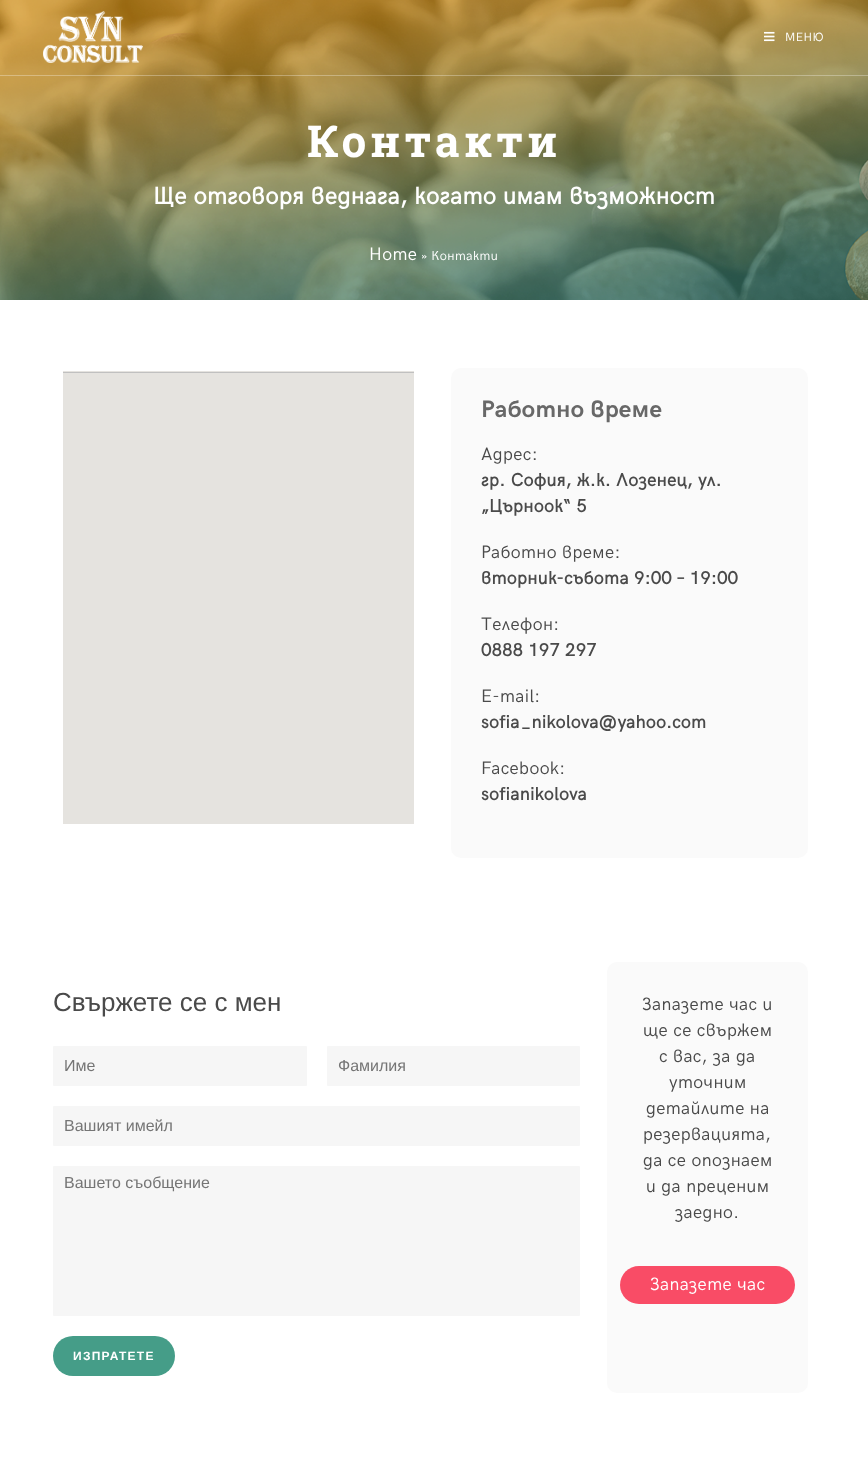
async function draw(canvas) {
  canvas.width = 868
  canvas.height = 1475
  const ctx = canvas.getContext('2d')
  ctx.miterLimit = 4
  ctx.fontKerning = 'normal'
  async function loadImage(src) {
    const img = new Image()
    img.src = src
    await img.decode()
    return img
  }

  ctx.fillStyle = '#fff'
  ctx.fillRect(0, 0, 868, 1475)
  ctx.drawImage(await loadImage('image2.png'), 0, 0, 868, 300)
  ctx.fillStyle = '#ffffff4d'
  ctx.fillRect(0, 75, 868, 1)
  ctx.drawImage(await loadImage('image0.png'), 43, 11, 100, 52)
  ctx.drawImage(await loadImage('image1.png'), 764, 31, 11, 11)
  ctx.letterSpacing = '0.5px'
  ctx.font = '12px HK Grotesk'
  ctx.fillStyle = '#fff'
  ctx.fillText('МЕНЮ', 785, 41)
  ctx.letterSpacing = '4px'
  ctx.font = 'bold 44px Roboto Slab'
  ctx.fillText('Контакти', 307, 157)
  ctx.letterSpacing = '0.4px'
  ctx.font = 'bold 24px "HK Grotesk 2"'
  ctx.fillText('Ще отговоря веднага, когато имам възможност', 153, 204)
  ctx.font = '18px HK Grotesk'
  ctx.fillText('Home', 369, 260)
  ctx.font = '13px HK Grotesk'
  ctx.fillText('» Контакти', 421, 260)
  ctx.drawImage(await loadImage('image3.png'), 63, 371, 351, 453)
  ctx.fillStyle = '#fafafa'
  ctx.beginPath()
  ctx.roundRect(451, 368, 357, 490, 10)
  ctx.fill()
  ctx.font = 'bold 24px HK Grotesk'
  ctx.fillStyle = '#686868'
  ctx.fillText('Работно време', 481, 417)
  ctx.font = '18px HK Grotesk'
  ctx.fillStyle = '#4a4a4a'
  ctx.fillText('Адрес:', 481, 460)
  ctx.font = 'bold 18px "HK Grotesk 2"'
  ctx.fillText('гр. София, ж.к. Лозенец, ул.', 481, 486)
  ctx.fillText('„Църноок“ 5', 481, 512)
  ctx.font = '18px HK Grotesk'
  ctx.fillText('Работно време:', 481, 558)
  ctx.font = 'bold 18px "HK Grotesk 2"'
  ctx.fillText('вторник-събота 9:00 – 19:00', 481, 584)
  ctx.font = '18px HK Grotesk'
  ctx.fillText('Телефон:', 481, 630)
  ctx.font = 'bold 18px "HK Grotesk 2"'
  ctx.fillText('0888 197 297', 481, 656)
  ctx.font = '18px HK Grotesk'
  ctx.fillText('E-mail:', 481, 702)
  ctx.font = 'bold 18px "HK Grotesk 2"'
  ctx.fillText('sofia_nikolova@yahoo.com', 481, 728)
  ctx.font = '18px HK Grotesk'
  ctx.fillText('Facebook:', 481, 774)
  ctx.font = 'bold 18px "HK Grotesk 2"'
  ctx.fillText('sofianikolova', 481, 800)
  ctx.letterSpacing = '0px'
  ctx.font = '26px Liberation Sans'
  ctx.fillText('Свържете се с мен', 53, 1011)
  ctx.fillStyle = '#f6f6f6'
  ctx.beginPath()
  ctx.roundRect(53, 1046, 254, 40, 1)
  ctx.fill()
  ctx.font = '16px Liberation Sans'
  ctx.fillStyle = '#757575'
  ctx.fillText('Име', 64, 1071)
  ctx.fillStyle = '#f6f6f6'
  ctx.beginPath()
  ctx.roundRect(327, 1046, 253, 40, 1)
  ctx.fill()
  ctx.fillStyle = '#757575'
  ctx.fillText('Фамилия', 338, 1071)
  ctx.fillStyle = '#f6f6f6'
  ctx.beginPath()
  ctx.roundRect(53, 1106, 527, 40, 1)
  ctx.fill()
  ctx.fillStyle = '#757575'
  ctx.fillText('Вашият имейл', 64, 1131)
  ctx.fillStyle = '#f6f6f6'
  ctx.beginPath()
  ctx.roundRect(53, 1166, 527, 150, 1)
  ctx.fill()
  ctx.fillStyle = '#757575'
  ctx.fillText('Вашето съобщение', 64, 1188)
  ctx.fillStyle = '#459d88'
  ctx.beginPath()
  ctx.roundRect(53, 1336, 122, 40, 20)
  ctx.fill()
  ctx.letterSpacing = '1.25px'
  ctx.font = 'bold 12px Liberation Sans'
  ctx.fillStyle = '#fff'
  ctx.fillText('ИЗПРАТЕТЕ', 73, 1360)
  ctx.fillStyle = '#fafafa'
  ctx.beginPath()
  ctx.roundRect(607, 962, 201, 431, 10)
  ctx.fill()
  ctx.letterSpacing = '0.4px'
  ctx.font = '18px HK Grotesk'
  ctx.fillStyle = '#4a4a4a'
  ctx.fillText('Запазете час и', 642, 1010)
  ctx.fillText('ще се свържем', 643, 1036)
  ctx.fillText('с вас, за да', 659, 1062)
  ctx.fillText('уточним', 669, 1088)
  ctx.fillText('детайлите на', 646, 1114)
  ctx.fillText('резервацията,', 643, 1140)
  ctx.fillText('да се опознаем', 643, 1166)
  ctx.fillText('и да преценим', 646, 1192)
  ctx.fillText('заедно.', 675, 1218)
  ctx.fillStyle = '#f94c66'
  ctx.beginPath()
  ctx.roundRect(620, 1266, 175, 38, 19)
  ctx.fill()
  ctx.fillStyle = '#fff'
  ctx.fillText('Запазете час', 650, 1290)
}

draw(document.querySelector('canvas'))
